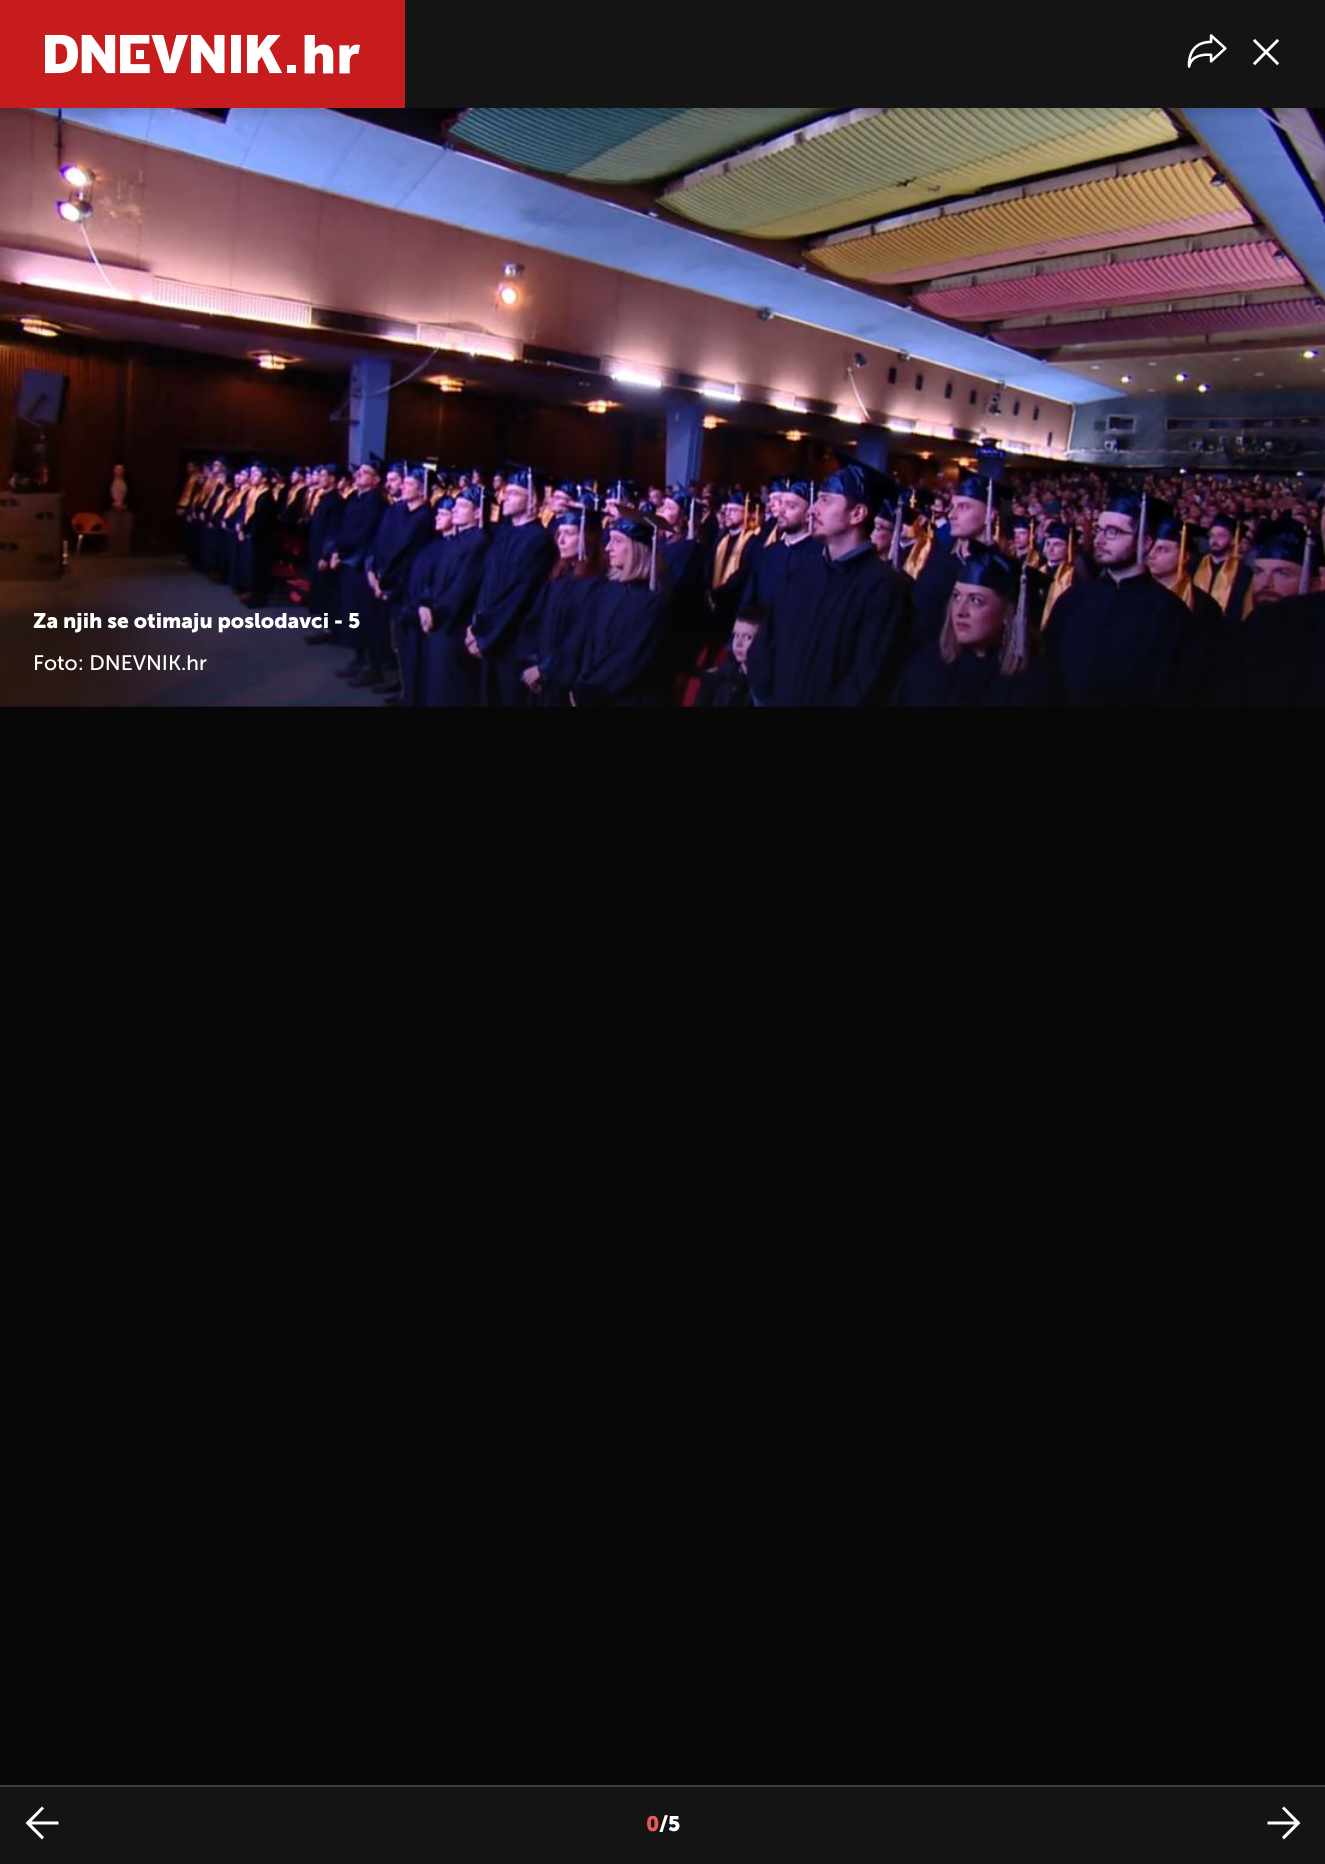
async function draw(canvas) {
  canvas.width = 1325
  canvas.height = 1864
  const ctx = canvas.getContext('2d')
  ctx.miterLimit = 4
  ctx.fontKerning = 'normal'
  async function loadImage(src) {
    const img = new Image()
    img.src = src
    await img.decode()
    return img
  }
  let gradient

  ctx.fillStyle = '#070707'
  ctx.fillRect(0, 0, 1325, 1864)
  ctx.drawImage(await loadImage('image3.png'), 0, 108, 1325, 599)
  ctx.fillStyle = '#0000001a'
  ctx.filter = 'blur(3px)'
  ctx.beginPath()
  ctx.rect(0, 6, 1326, 108)
  ctx.fill()
  ctx.filter = 'none'
  ctx.fillStyle = '#141414'
  ctx.fillRect(405, 0, 920, 108)
  ctx.fillStyle = '#c71c1d'
  ctx.fillRect(0, 0, 405, 108)
  ctx.drawImage(await loadImage('image0.png'), 45, 35, 315, 39)
  ctx.drawImage(await loadImage('image1.png'), 1187, 34, 40, 34)
  ctx.drawImage(await loadImage('image2.png'), 1252, 39, 28, 27)
  gradient = ctx.createLinearGradient(663, 707, 663, 518)
  gradient.addColorStop(0, '#14141466')
  gradient.addColorStop(1, '#14141400')
  ctx.fillStyle = gradient
  ctx.fillRect(0, 528, 1325, 179)
  ctx.font = '21px Museo Sans'
  ctx.fillStyle = '#fff'
  ctx.fillText('Za njih se otimaju poslodavci - 5', 33, 628)
  ctx.font = '21px "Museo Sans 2"'
  ctx.fillText('Foto: DNEVNIK.hr', 33, 670)
  ctx.fillStyle = '#141414'
  ctx.fillRect(0, 1787, 1325, 77)
  ctx.fillStyle = '#3d3d3d'
  ctx.fillRect(0, 1785, 1325, 2)
  ctx.fillStyle = '#fff'
  ctx.beginPath()
  ctx.moveTo(42, 1839.5)
  ctx.lineTo(44, 1837)
  ctx.lineTo(31.5, 1824.5)
  ctx.lineTo(58.5, 1824.5)
  ctx.lineTo(58.5, 1821.5)
  ctx.lineTo(31.5, 1821.5)
  ctx.lineTo(44, 1808.5)
  ctx.lineTo(42, 1806.5)
  ctx.lineTo(25.5, 1823)
  ctx.closePath()
  ctx.fill()
  ctx.font = '21px Museo Sans'
  ctx.fillStyle = '#e95858'
  ctx.fillText('0', 646, 1831)
  ctx.fillStyle = '#fff'
  ctx.fillText('/5', 659, 1831)
  ctx.beginPath()
  ctx.moveTo(1284, 1839.5)
  ctx.lineTo(1282, 1837)
  ctx.lineTo(1294.5, 1824.5)
  ctx.lineTo(1267.5, 1824.5)
  ctx.lineTo(1267.5, 1821.5)
  ctx.lineTo(1294.5, 1821.5)
  ctx.lineTo(1282, 1808.5)
  ctx.lineTo(1284, 1806.5)
  ctx.lineTo(1300.5, 1823)
  ctx.closePath()
  ctx.fill()
}

draw(document.querySelector('canvas'))
